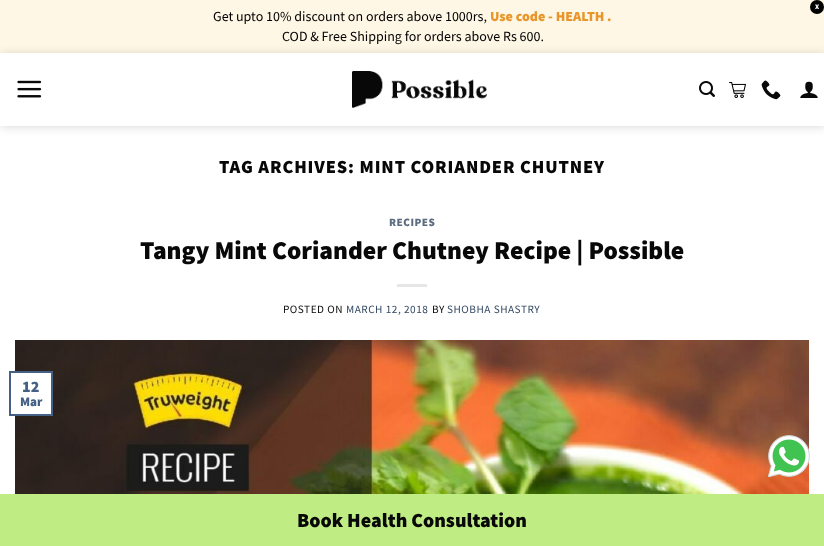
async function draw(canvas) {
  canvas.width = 824
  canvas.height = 546
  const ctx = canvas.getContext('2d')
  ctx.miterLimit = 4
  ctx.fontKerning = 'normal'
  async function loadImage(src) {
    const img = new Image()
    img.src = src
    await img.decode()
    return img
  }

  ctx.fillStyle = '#fff'
  ctx.fillRect(0, 0, 824, 546)
  ctx.fillStyle = '#fff7e5'
  ctx.fillRect(0, 0, 824, 53)
  ctx.fillStyle = '#000'
  ctx.beginPath()
  ctx.arc(817, 7, 7, 0, 2 * Math.PI)
  ctx.fill()
  ctx.font = '900 7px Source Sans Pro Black'
  ctx.fillStyle = '#fff'
  ctx.fillText('X', 815, 9)
  ctx.font = '14px Source Sans Pro'
  ctx.fillStyle = '#000'
  ctx.fillText('Get upto 10% discount on orders above 1000rs,', 213, 21)
  ctx.font = '900 14px Source Sans Pro Black'
  ctx.fillStyle = '#e8962b'
  ctx.fillText('Use code - HEALTH .', 490, 21)
  ctx.font = '14px Source Sans Pro'
  ctx.fillStyle = '#000'
  ctx.fillText('COD & Free Shipping for orders above Rs 600.', 282, 41)
  ctx.save()
  ctx.beginPath()
  ctx.moveTo(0, 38)
  ctx.lineTo(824, 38)
  ctx.lineTo(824, 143)
  ctx.lineTo(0, 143)
  ctx.closePath()
  ctx.moveTo(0, 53)
  ctx.lineTo(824, 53)
  ctx.lineTo(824, 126)
  ctx.lineTo(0, 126)
  ctx.closePath()
  ctx.clip('evenodd')
  ctx.fillStyle = '#00000026'
  ctx.filter = 'blur(5px)'
  ctx.beginPath()
  ctx.rect(1, 54, 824, 73)
  ctx.fill()
  ctx.filter = 'none'
  ctx.restore()
  ctx.drawImage(await loadImage('image0.png'), 17, 80, 25, 18)
  ctx.drawImage(await loadImage('image1.png'), 352, 71, 135, 37)
  ctx.drawImage(await loadImage('image2.png'), 699, 81, 16, 16)
  ctx.drawImage(await loadImage('image3.png'), 729, 82, 17, 16)
  ctx.drawImage(await loadImage('image4.png'), 761, 80, 20, 20)
  ctx.drawImage(await loadImage('image5.png'), 800, 81, 18, 17)
  ctx.letterSpacing = '0.9px'
  ctx.font = '900 18.4px Source Sans Pro Black'
  ctx.fillStyle = '#080808'
  ctx.fillText('TAG ARCHIVES: MINT CORIANDER CHUTNEY', 219, 173)
  ctx.letterSpacing = '0.5px'
  ctx.font = '900 11.25px Source Sans Pro Black'
  ctx.fillStyle = '#5c6d81'
  ctx.fillText('RECIPES', 389, 226)
  ctx.letterSpacing = '0px'
  ctx.font = '900 25.6px Source Sans Pro Black'
  ctx.fillStyle = '#080808'
  ctx.fillText('Tangy Mint Coriander Chutney Recipe | Possible', 140, 259)
  ctx.fillStyle = '#e6e6e6'
  ctx.fillRect(397, 284, 30, 3)
  ctx.letterSpacing = '0.5px'
  ctx.font = '11.25px Source Sans Pro'
  ctx.fillStyle = '#080808'
  ctx.fillText('POSTED ON', 283, 313)
  ctx.fillStyle = '#334862'
  ctx.fillText('MARCH 12, 2018', 346, 313)
  ctx.fillStyle = '#080808'
  ctx.fillText('BY', 432, 313)
  ctx.fillStyle = '#334862'
  ctx.fillText('SHOBHA SHASTRY', 447, 313)
  ctx.drawImage(await loadImage('image6.png'), 15, 340, 794, 154)
  ctx.fillStyle = '#fff'
  ctx.fillRect(15, 373, 36, 41)
  ctx.strokeStyle = '#446084'
  ctx.lineWidth = 2
  ctx.strokeRect(10, 372, 42, 43)
  ctx.letterSpacing = '0px'
  ctx.font = '900 16px Source Sans Pro Black'
  ctx.fillStyle = '#446084'
  ctx.fillText('12', 22, 392)
  ctx.font = '900 13px Source Sans Pro Black'
  ctx.fillText('Mar', 20, 406)
  ctx.drawImage(await loadImage('image7.png'), 768, 435, 42, 43)
  ctx.fillStyle = '#bfec83'
  ctx.fillRect(0, 494, 824, 52)
  ctx.font = '900 20px Source Sans Pro Black'
  ctx.fillStyle = '#080808'
  ctx.fillText('Book Health Consultation', 297, 527)
}

draw(document.querySelector('canvas'))
